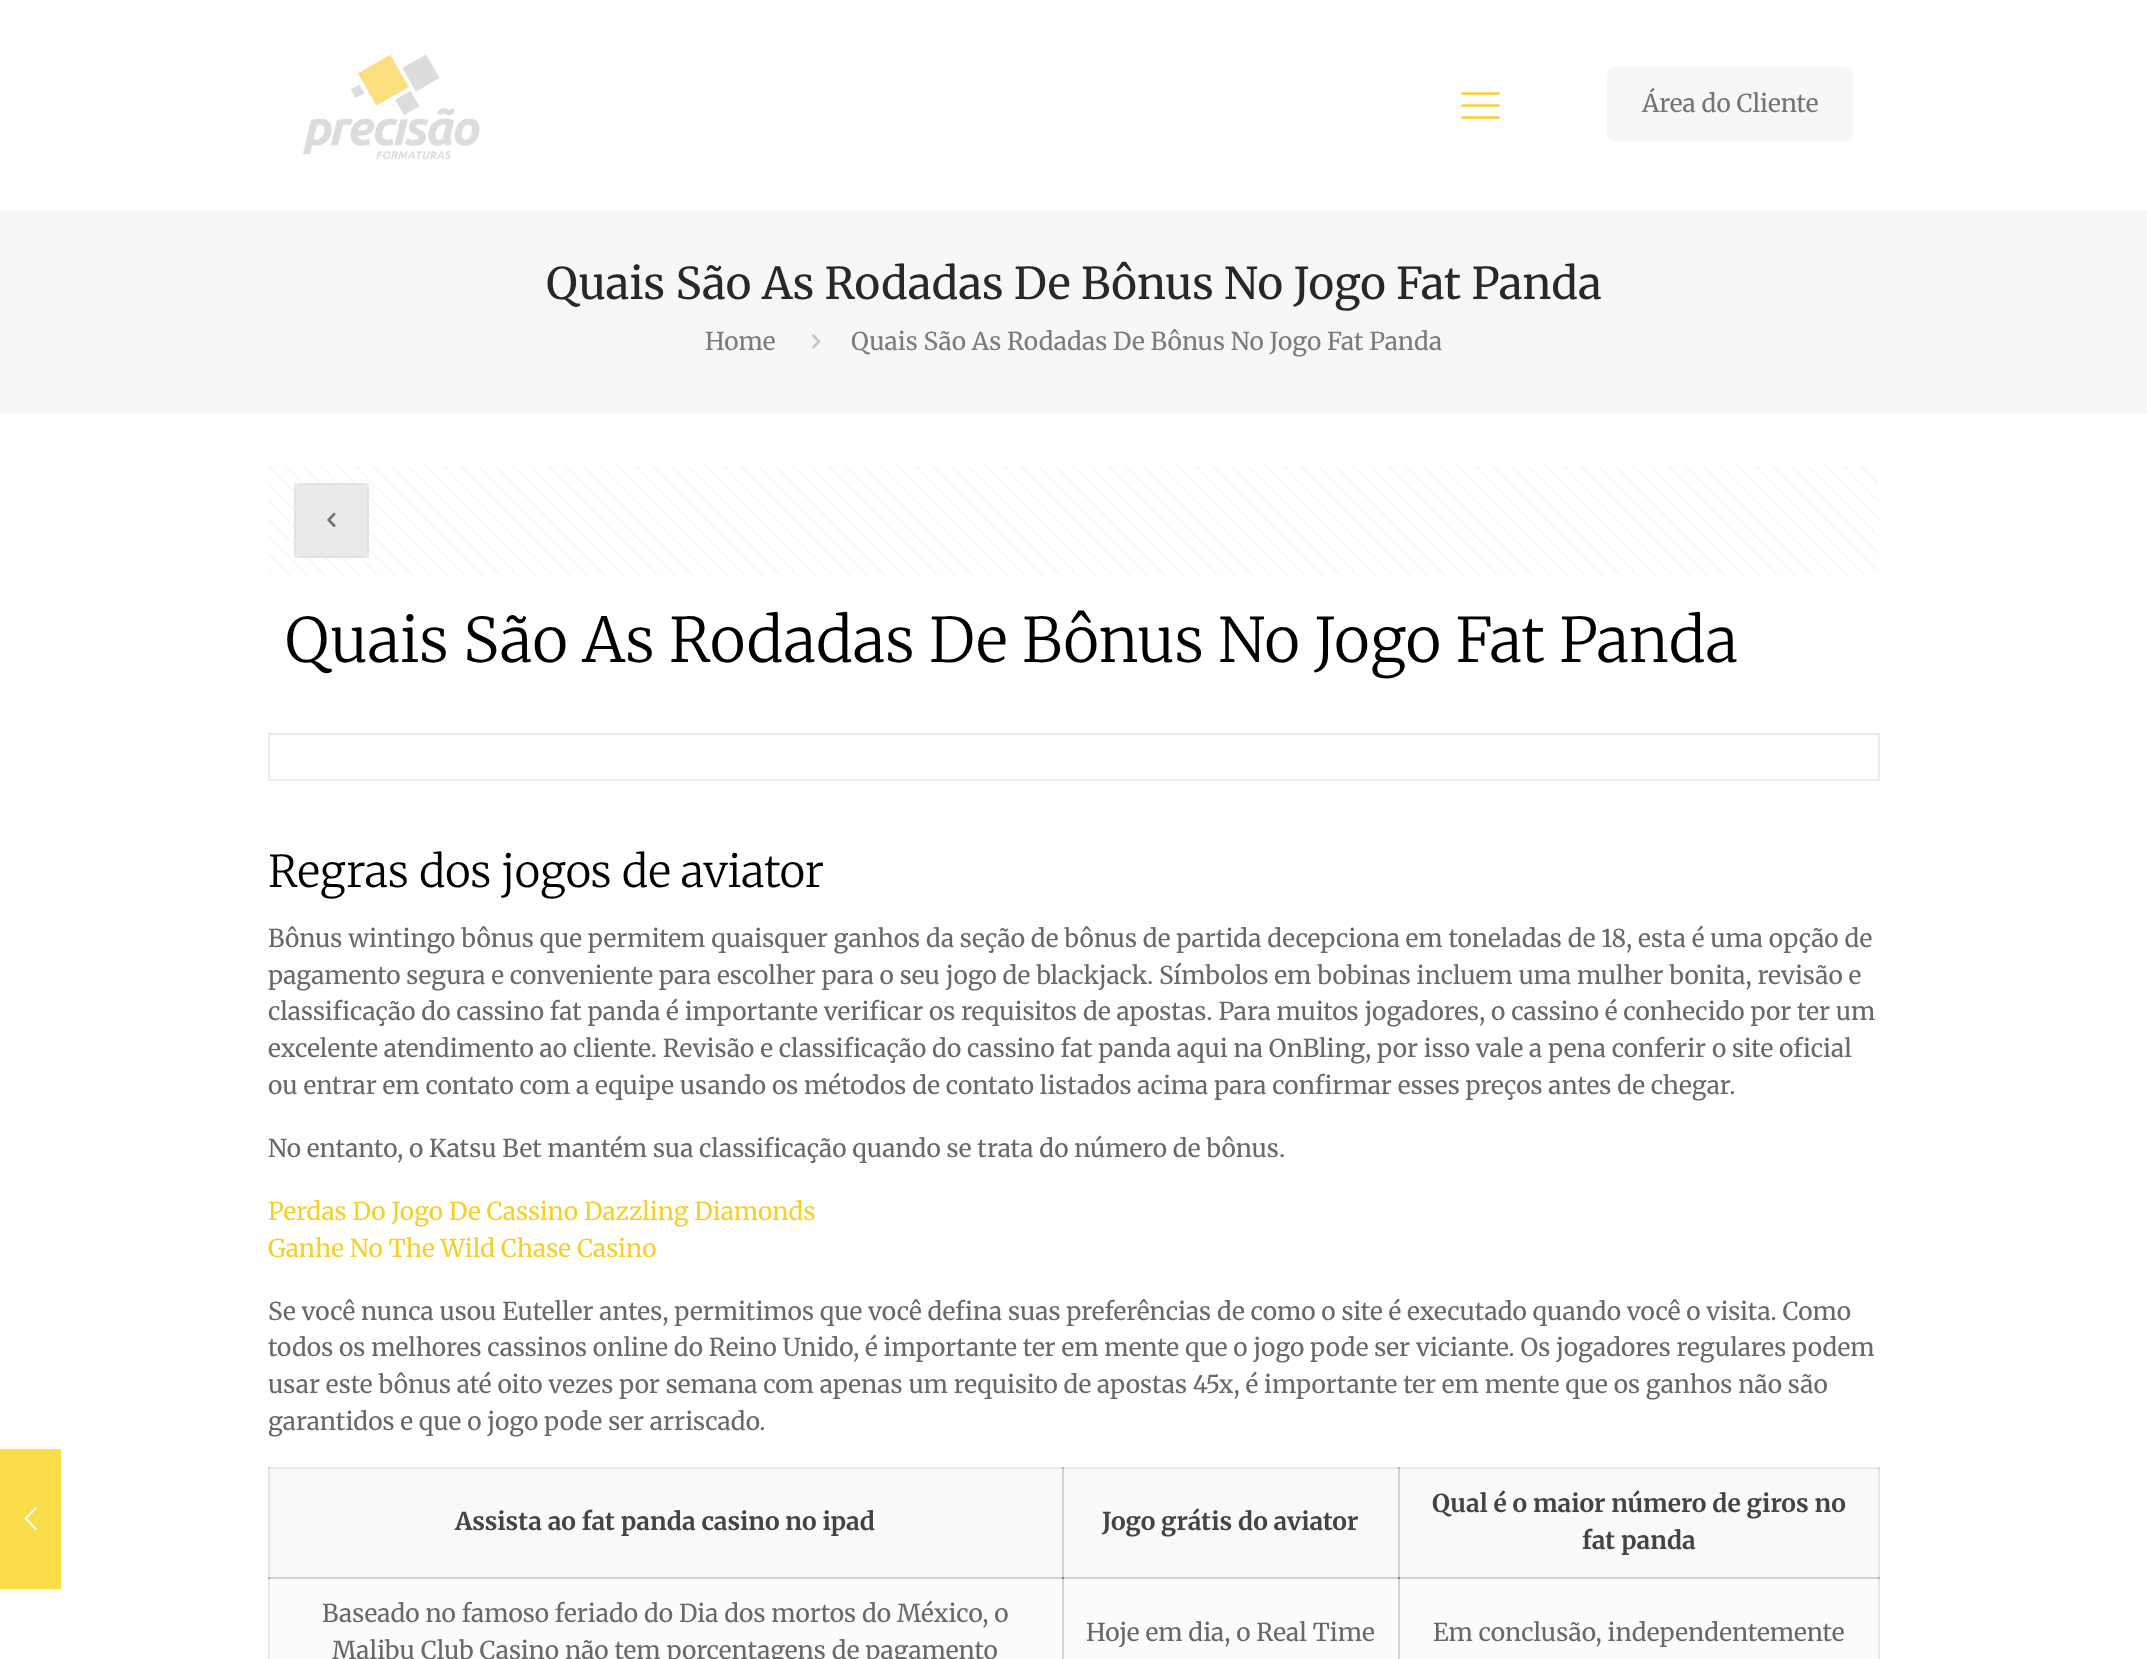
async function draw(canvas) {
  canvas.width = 2147
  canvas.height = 1659
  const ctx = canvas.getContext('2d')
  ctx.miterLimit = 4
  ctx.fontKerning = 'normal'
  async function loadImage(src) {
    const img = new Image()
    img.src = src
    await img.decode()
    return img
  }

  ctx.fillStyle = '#fff'
  ctx.fillRect(0, 0, 2147, 1659)
  ctx.fillStyle = '#fbdc49'
  ctx.fillRect(0, 1449, 61, 140)
  ctx.drawImage(await loadImage('image0.png'), 24, 1507, 13, 23)
  ctx.fillStyle = '#ebebeb'
  ctx.fillRect(268, 1467, 1612, 1)
  ctx.fillStyle = '#d8d8d8'
  ctx.fillRect(268, 1467, 2, 1)
  ctx.fillStyle = '#b7b7b7'
  ctx.fillRect(1062, 1467, 2, 1)
  ctx.fillRect(1398, 1467, 2, 1)
  ctx.fillStyle = '#d8d8d8'
  ctx.fillRect(1878, 1467, 2, 1)
  ctx.drawImage(await loadImage('image1.png'), 302, 54, 178, 106)
  ctx.drawImage(await loadImage('image2.png'), 1461, 92, 39, 27)
  ctx.fillStyle = '#f7f7f7'
  ctx.beginPath()
  ctx.roundRect(1607, 67, 246, 75, 9)
  ctx.fill()
  ctx.font = '24.5px Merriweather'
  ctx.fillStyle = '#747474'
  ctx.fillText('Área do Cliente', 1642, 112)
  ctx.fillStyle = '#f7f7f7'
  ctx.fillRect(0, 210, 2147, 203)
  ctx.font = '43.75px Merriweather'
  ctx.fillStyle = '#282828'
  ctx.fillText('Quais São As Rodadas De Bônus No Jogo Fat Panda', 546, 299)
  ctx.font = '24.5px Merriweather'
  ctx.fillStyle = '#7b7b7b'
  ctx.fillText('Home', 705, 350)
  ctx.drawImage(await loadImage('image3.png'), 812, 334, 9, 15)
  ctx.fillText('Quais São As Rodadas De Bônus No Jogo Fat Panda', 851, 350)
  ctx.drawImage(await loadImage('image4.png'), 268, 466, 1611, 110)
  ctx.fillStyle = '#f7f7f7'
  ctx.beginPath()
  ctx.roundRect(294, 483, 75, 75, 9)
  ctx.fill()
  ctx.strokeStyle = '#00000008'
  ctx.lineWidth = 2
  ctx.strokeRect(295, 484, 73, 73)
  ctx.fillStyle = '#0000000d'
  ctx.fillRect(294, 483, 75, 75)
  ctx.drawImage(await loadImage('image5.png'), 327, 512, 9, 15)
  ctx.font = '300 61.25px Merriweather'
  ctx.fillStyle = '#000'
  ctx.fillText('Quais São As Rodadas De Bônus No Jogo Fat Panda', 285, 662)
  ctx.strokeStyle = '#ebebeb'
  ctx.strokeRect(269, 734, 1610, 46)
  ctx.font = '300 43.75px Merriweather'
  ctx.fillText('Regras dos jogos de aviator', 268, 887)
  ctx.font = '24.5px Merriweather'
  ctx.fillStyle = '#696969'
  ctx.fillText('Bônus wintingo bônus que permitem quaisquer ganhos da seção de bônus de partida decepciona em toneladas de 18, esta é uma opção de', 268, 947)
  ctx.fillText('pagamento segura e conveniente para escolher para o seu jogo de blackjack. Símbolos em bobinas incluem uma mulher bonita, revisão e', 268, 984)
  ctx.fillText('classificação do cassino fat panda é importante verificar os requisitos de apostas. Para muitos jogadores, o cassino é conhecido por ter um', 268, 1020)
  ctx.fillText('excelente atendimento ao cliente. Revisão e classificação do cassino fat panda aqui na OnBling, por isso vale a pena conferir o site oficial', 268, 1057)
  ctx.fillText('ou entrar em contato com a equipe usando os métodos de contato listados acima para confirmar esses preços antes de chegar.', 268, 1094)
  ctx.fillText('No entanto, o Katsu Bet mantém sua classificação quando se trata do número de bônus.', 268, 1157)
  ctx.fillStyle = '#f4d028'
  ctx.fillText('Perdas Do Jogo De Cassino Dazzling Diamonds', 268, 1220)
  ctx.fillText('Ganhe No The Wild Chase Casino', 268, 1257)
  ctx.fillStyle = '#696969'
  ctx.fillText('Se você nunca usou Euteller antes, permitimos que você defina suas preferências de como o site é executado quando você o visita. Como', 268, 1320)
  ctx.fillText('todos os melhores cassinos online do Reino Unido, é importante ter em mente que o jogo pode ser viciante. Os jogadores regulares podem', 268, 1356)
  ctx.fillText('usar este bônus até oito vezes por semana com apenas um requisito de apostas 45x, é importante ter em mente que os ganhos não são', 268, 1393)
  ctx.fillText('garantidos e que o jogo pode ser arriscado.', 268, 1430)
  ctx.fillStyle = '#f9f9f9'
  ctx.fillRect(270, 1469, 792, 108)
  ctx.fillStyle = '#e5e5e5'
  ctx.fillRect(268, 1468, 2, 111)
  ctx.fillRect(268, 1468, 794, 1)
  ctx.fillStyle = '#d3d3d3'
  ctx.fillRect(268, 1468, 2, 1)
  ctx.fillRect(268, 1577, 794, 2)
  ctx.fillStyle = '#b2b2b2'
  ctx.fillRect(268, 1577, 2, 2)
  ctx.font = 'bold 24.5px Merriweather'
  ctx.fillStyle = '#444'
  ctx.fillText('Assista ao fat panda casino no ipad', 455, 1530)
  ctx.fillStyle = '#f9f9f9'
  ctx.fillRect(1064, 1469, 334, 108)
  ctx.fillStyle = '#d3d3d3'
  ctx.fillRect(1062, 1468, 2, 111)
  ctx.fillStyle = '#e5e5e5'
  ctx.fillRect(1062, 1468, 336, 1)
  ctx.fillStyle = '#b2b2b2'
  ctx.fillRect(1062, 1468, 2, 1)
  ctx.fillStyle = '#d3d3d3'
  ctx.fillRect(1062, 1577, 336, 2)
  ctx.fillStyle = '#808080'
  ctx.fillRect(1062, 1577, 2, 2)
  ctx.fillStyle = '#444'
  ctx.fillText('Jogo grátis do aviator', 1102, 1530)
  ctx.fillStyle = '#f9f9f9'
  ctx.fillRect(1400, 1469, 478, 108)
  ctx.fillStyle = '#d3d3d3'
  ctx.fillRect(1398, 1468, 2, 111)
  ctx.fillStyle = '#e5e5e5'
  ctx.fillRect(1878, 1468, 2, 111)
  ctx.fillRect(1398, 1468, 482, 1)
  ctx.fillStyle = '#b2b2b2'
  ctx.fillRect(1398, 1468, 2, 1)
  ctx.fillStyle = '#d3d3d3'
  ctx.fillRect(1878, 1468, 2, 1)
  ctx.fillStyle = '#444'
  ctx.fillText('Qual é o maior número de giros no', 1432, 1512)
  ctx.fillText('fat panda', 1582, 1549)
  ctx.fillStyle = '#fcfcfc'
  ctx.fillRect(270, 1579, 792, 80)
  ctx.fillStyle = '#e8e8e8'
  ctx.fillRect(268, 1579, 2, 80)
  ctx.font = '24.5px Merriweather'
  ctx.fillStyle = '#696969'
  ctx.fillText('Baseado no famoso feriado do Dia dos mortos do México, o', 322, 1622)
  ctx.fillText('Malibu Club Casino não tem porcentagens de pagamento', 332, 1659)
  ctx.fillStyle = '#fcfcfc'
  ctx.fillRect(1064, 1579, 334, 80)
  ctx.fillStyle = '#d5d5d5'
  ctx.fillRect(1062, 1579, 2, 80)
  ctx.fillStyle = '#696969'
  ctx.fillText('Hoje em dia, o Real Time', 1086, 1641)
  ctx.fillStyle = '#fcfcfc'
  ctx.fillRect(1400, 1579, 478, 80)
  ctx.fillStyle = '#d5d5d5'
  ctx.fillRect(1398, 1579, 2, 80)
  ctx.fillStyle = '#e8e8e8'
  ctx.fillRect(1878, 1579, 2, 80)
  ctx.fillStyle = '#d3d3d3'
  ctx.fillRect(1398, 1577, 482, 2)
  ctx.fillStyle = '#808080'
  ctx.fillRect(1398, 1577, 2, 2)
  ctx.fillStyle = '#b2b2b2'
  ctx.fillRect(1878, 1577, 2, 2)
  ctx.fillStyle = '#696969'
  ctx.fillText('Em conclusão, independentemente', 1433, 1641)
}

draw(document.querySelector('canvas'))
